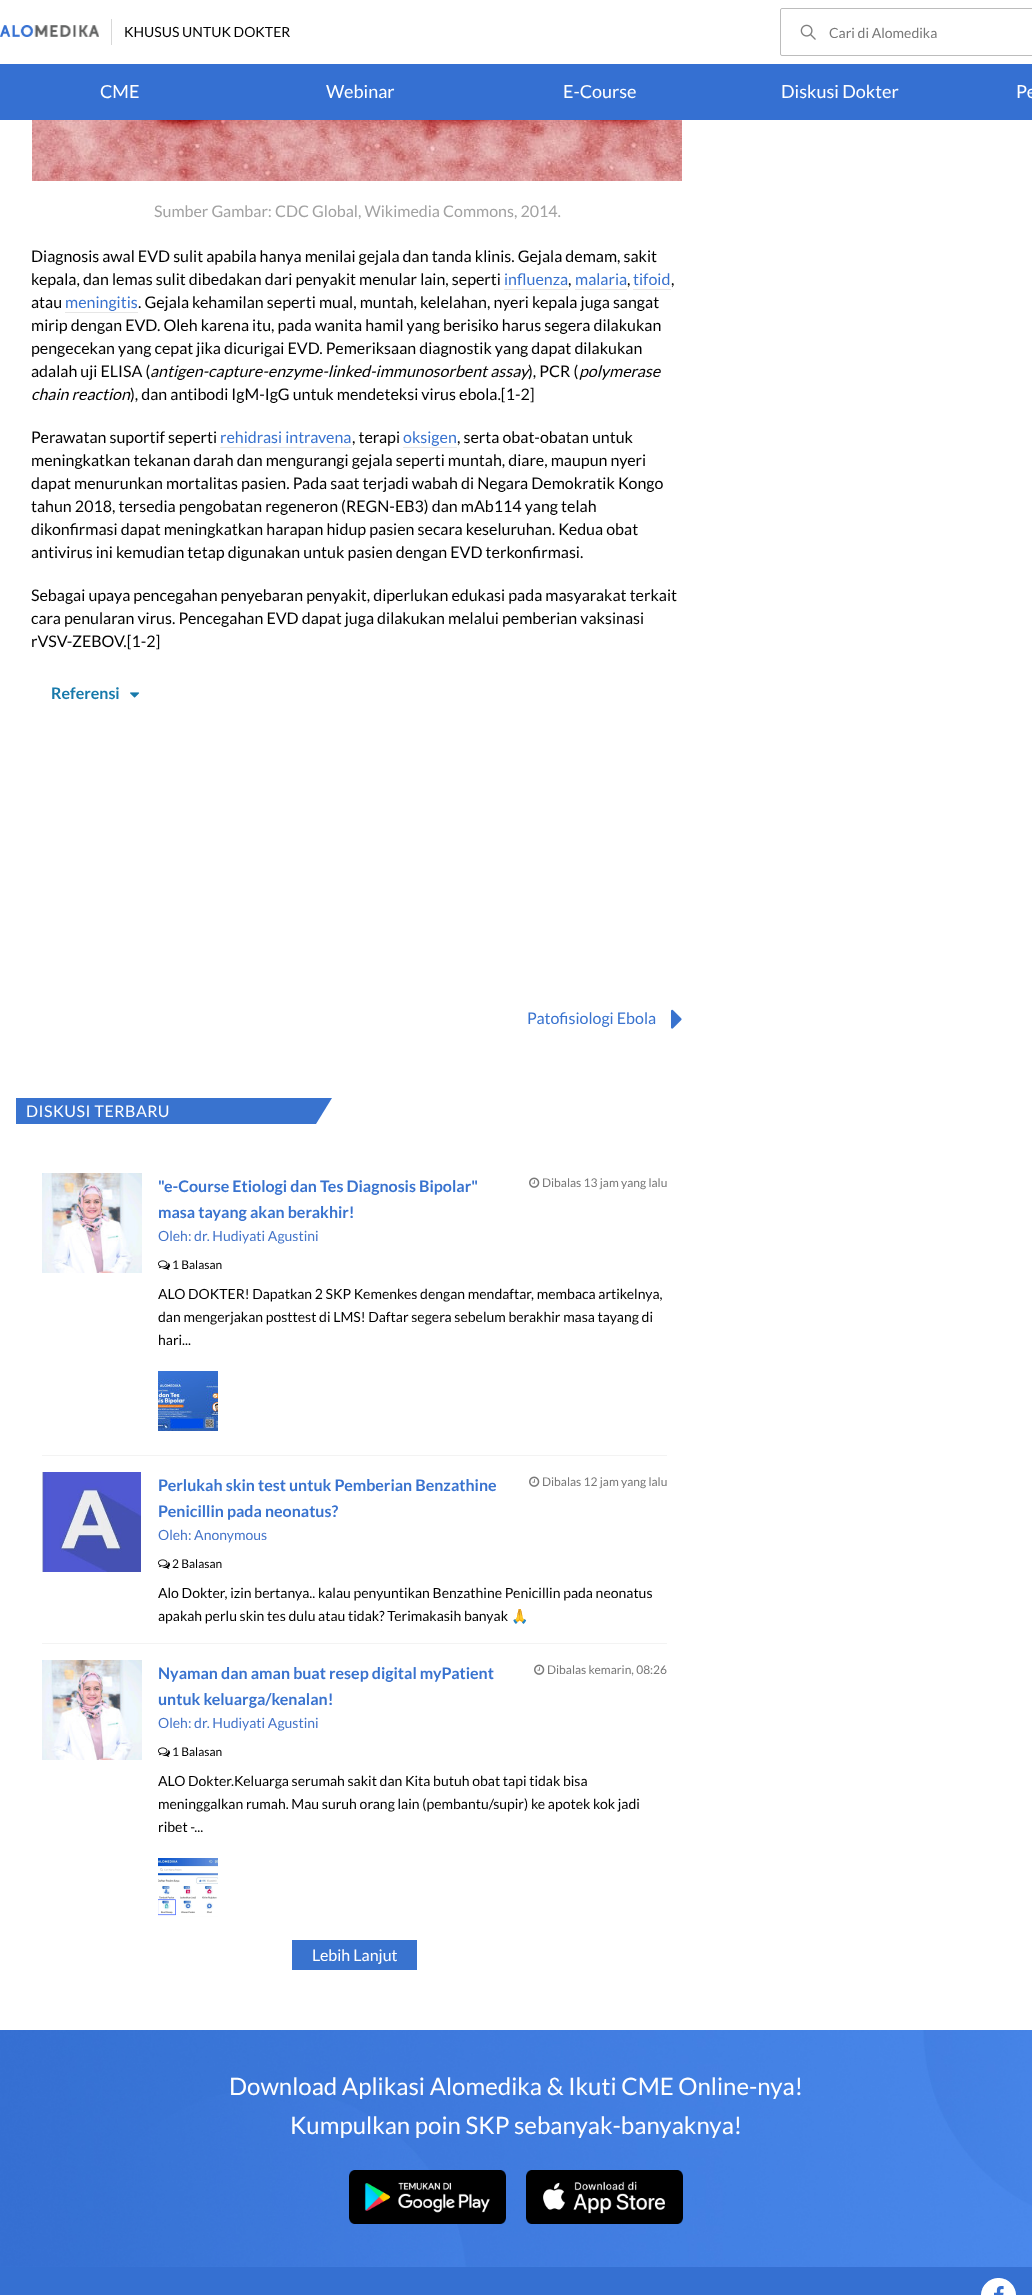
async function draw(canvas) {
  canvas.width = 1032
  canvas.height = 2295
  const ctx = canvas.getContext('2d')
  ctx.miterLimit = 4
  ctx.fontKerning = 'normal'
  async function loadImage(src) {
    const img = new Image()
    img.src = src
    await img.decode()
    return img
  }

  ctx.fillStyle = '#fff'
  ctx.fillRect(0, 0, 1032, 2295)
  ctx.drawImage(await loadImage('image0.png'), 0, 25, 99, 12)
  ctx.fillStyle = '#d8d8d8'
  ctx.fillRect(111, 19, 1, 26)
  ctx.font = '14px Lato'
  ctx.fillStyle = '#000'
  ctx.fillText('KHUSUS UNTUK DOKTER', 124, 37)
  ctx.drawImage(await loadImage('image1.png'), 800, 24, 16, 16)
  ctx.beginPath()
  ctx.roundRect(780.5, 8.5, 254, 47, 1.5)
  ctx.strokeStyle = '#bcbcbc'
  ctx.stroke()
  ctx.fillStyle = '#787878'
  ctx.fillText('Cari di Alomedika', 829, 38)
  ctx.fillStyle = '#3570d2'
  ctx.fillRect(0, 64, 1032, 56)
  ctx.font = '18px Lato'
  ctx.fillStyle = '#fff'
  ctx.fillText('CME', 100, 98)
  ctx.fillText('Webinar', 326, 98)
  ctx.fillText('E-Course', 563, 98)
  ctx.fillText('Diskusi Dokter', 781, 98)
  ctx.fillText('Pe', 1016, 98)
  ctx.drawImage(await loadImage('image2.png'), 32, 120, 650, 61)
  ctx.font = '16px Lato'
  ctx.fillStyle = '#a2a2a2'
  ctx.fillText('Sumber Gambar: CDC Global, Wikimedia Commons, 2014.', 154, 217)
  ctx.fillStyle = '#000'
  ctx.fillText('Diagnosis awal EVD sulit apabila hanya menilai gejala dan tanda klinis. Gejala demam, sakit', 31, 262)
  ctx.fillText('kepala, dan lemas sulit dibedakan dari penyakit menular lain, seperti', 31, 285)
  ctx.fillStyle = '#3973cf'
  ctx.fillText('influenza', 504, 285)
  ctx.fillStyle = '#e6e6e6'
  ctx.fillRect(504, 289, 64, 1)
  ctx.fillStyle = '#000'
  ctx.fillText(',', 568, 285)
  ctx.fillStyle = '#3973cf'
  ctx.fillText('malaria', 575, 285)
  ctx.fillStyle = '#e6e6e6'
  ctx.fillRect(575, 289, 52, 1)
  ctx.fillStyle = '#000'
  ctx.fillText(',', 627, 285)
  ctx.fillStyle = '#3973cf'
  ctx.fillText('tifoid', 633, 285)
  ctx.fillStyle = '#e6e6e6'
  ctx.fillRect(633, 289, 38, 1)
  ctx.fillStyle = '#000'
  ctx.fillText(',', 671, 285)
  ctx.fillText('atau', 31, 308)
  ctx.fillStyle = '#3973cf'
  ctx.fillText('meningitis', 65, 308)
  ctx.fillStyle = '#e6e6e6'
  ctx.fillRect(65, 312, 73, 1)
  ctx.fillStyle = '#000'
  ctx.fillText('. Gejala kehamilan seperti mual, muntah, kelelahan, nyeri kepala juga sangat', 138, 308)
  ctx.fillText('mirip dengan EVD. Oleh karena itu, pada wanita hamil yang berisiko harus segera dilakukan', 31, 331)
  ctx.fillText('pengecekan yang cepat jika dicurigai EVD. Pemeriksaan diagnostik yang dapat dilakukan', 31, 354)
  ctx.fillText('adalah uji ELISA (', 31, 377)
  ctx.font = 'italic 16px Lato'
  ctx.fillText('antigen-capture-enzyme-linked-immunosorbent assay', 150, 377)
  ctx.font = '16px Lato'
  ctx.fillText('), PCR (', 528, 377)
  ctx.font = 'italic 16px Lato'
  ctx.fillText('polymerase', 579, 377)
  ctx.fillText('chain reaction', 31, 400)
  ctx.font = '16px Lato'
  ctx.fillText('), dan antibodi IgM-IgG untuk mendeteksi virus ebola.[1-2]', 130, 400)
  ctx.fillText('Perawatan suportif seperti', 31, 443)
  ctx.fillStyle = '#3973cf'
  ctx.fillText('rehidrasi intravena', 220, 443)
  ctx.fillStyle = '#e6e6e6'
  ctx.fillRect(220, 447, 132, 1)
  ctx.fillStyle = '#000'
  ctx.fillText(', terapi', 352, 443)
  ctx.fillStyle = '#3973cf'
  ctx.fillText('oksigen', 403, 443)
  ctx.fillStyle = '#e6e6e6'
  ctx.fillRect(403, 447, 54, 1)
  ctx.fillStyle = '#000'
  ctx.fillText(', serta obat-obatan untuk', 457, 443)
  ctx.fillText('meningkatkan tekanan darah dan mengurangi gejala seperti muntah, diare, maupun nyeri', 31, 466)
  ctx.fillText('dapat menurunkan mortalitas pasien. Pada saat terjadi wabah di Negara Demokratik Kongo', 31, 489)
  ctx.fillText('tahun 2018, tersedia pengobatan regeneron (REGN-EB3) dan mAb114 yang telah', 31, 512)
  ctx.fillText('dikonfirmasi dapat meningkatkan harapan hidup pasien secara keseluruhan. Kedua obat', 31, 535)
  ctx.fillText('antivirus ini kemudian tetap digunakan untuk pasien dengan EVD terkonfirmasi.', 31, 558)
  ctx.fillText('Sebagai upaya pencegahan penyebaran penyakit, diperlukan edukasi pada masyarakat terkait', 31, 601)
  ctx.fillText('cara penularan virus. Pencegahan EVD dapat juga dilakukan melalui pemberian vaksinasi', 31, 624)
  ctx.fillText('rVSV-ZEBOV.[1-2]', 31, 647)
  ctx.font = 'bold 16px Lato'
  ctx.fillStyle = '#187aab'
  ctx.fillText('Referensi', 51, 699)
  ctx.drawImage(await loadImage('image3.png'), 130, 692, 10, 6)
  ctx.font = '16px Lato'
  ctx.fillStyle = '#3973cf'
  ctx.fillText('Patofisiologi Ebola', 527, 1024)
  ctx.drawImage(await loadImage('image4.png'), 671, 1009, 11, 20)
  ctx.fillRect(16, 1098, 300, 26)
  ctx.letterSpacing = '0.5px'
  ctx.fillStyle = '#fff'
  ctx.fillText('DISKUSI TERBARU', 26, 1117)
  ctx.fillStyle = '#3973cf'
  ctx.beginPath()
  ctx.moveTo(316, 1124)
  ctx.lineTo(316, 1098)
  ctx.lineTo(332, 1098)
  ctx.closePath()
  ctx.fill()
  ctx.fillStyle = '#f3f3f3'
  ctx.fillRect(42, 1455, 625, 1)
  ctx.drawImage(await loadImage('image5.png'), 42, 1173, 100, 100)
  ctx.letterSpacing = '0px'
  ctx.font = 'bold 16px Lato'
  ctx.fillStyle = '#3973cf'
  ctx.fillText('"e-Course Etiologi dan Tes Diagnosis Bipolar"', 158, 1192)
  ctx.fillText('masa tayang akan berakhir!', 158, 1218)
  ctx.drawImage(await loadImage('image6.png'), 529, 1177, 11, 11)
  ctx.font = '12px Lato'
  ctx.fillStyle = '#787878'
  ctx.fillText('Dibalas 13 jam yang lalu', 542, 1187)
  ctx.font = '14px Lato'
  ctx.fillStyle = '#4474c9'
  ctx.fillText('Oleh: dr. Hudiyati Agustini', 158, 1241)
  ctx.drawImage(await loadImage('image7.png'), 158, 1260, 12, 10)
  ctx.font = '12px Lato'
  ctx.fillStyle = '#000'
  ctx.fillText('1 Balasan', 172, 1269)
  ctx.font = '14px Lato'
  ctx.fillText('ALO DOKTER! Dapatkan 2 SKP Kemenkes dengan mendaftar, membaca artikelnya,', 158, 1299)
  ctx.fillText('dan mengerjakan posttest di LMS! Daftar segera sebelum berakhir masa tayang di', 158, 1322)
  ctx.fillText('hari...', 158, 1345)
  ctx.drawImage(await loadImage('image8.png'), 158, 1371, 60, 60)
  ctx.fillStyle = '#f3f3f3'
  ctx.fillRect(42, 1643, 625, 1)
  ctx.drawImage(await loadImage('image9.png'), 42, 1472, 99, 100)
  ctx.font = 'bold 16px Lato'
  ctx.fillStyle = '#3973cf'
  ctx.fillText('Perlukah skin test untuk Pemberian Benzathine', 158, 1491)
  ctx.fillText('Penicillin pada neonatus?', 158, 1517)
  ctx.drawImage(await loadImage('image6.png'), 529, 1476, 11, 11)
  ctx.font = '12px Lato'
  ctx.fillStyle = '#787878'
  ctx.fillText('Dibalas 12 jam yang lalu', 542, 1486)
  ctx.font = '14px Lato'
  ctx.fillStyle = '#4474c9'
  ctx.fillText('Oleh: Anonymous', 158, 1540)
  ctx.drawImage(await loadImage('image7.png'), 158, 1559, 12, 10)
  ctx.font = '12px Lato'
  ctx.fillStyle = '#000'
  ctx.fillText('2 Balasan', 172, 1568)
  ctx.font = '14px Lato'
  ctx.fillText('Alo Dokter, izin bertanya.. kalau penyuntikan Benzathine Penicillin pada neonatus', 158, 1598)
  ctx.fillText('apakah perlu skin tes dulu atau tidak? Terimakasih banyak', 158, 1621)
  ctx.font = '14px Noto Color Emoji'
  ctx.fillText('🙏', 511, 1621)
  ctx.drawImage(await loadImage('image10.png'), 42, 1660, 100, 100)
  ctx.font = 'bold 16px Lato'
  ctx.fillStyle = '#3973cf'
  ctx.fillText('Nyaman dan aman buat resep digital myPatient', 158, 1679)
  ctx.fillText('untuk keluarga/kenalan!', 158, 1705)
  ctx.drawImage(await loadImage('image6.png'), 534, 1664, 11, 11)
  ctx.font = '12px Lato'
  ctx.fillStyle = '#787878'
  ctx.fillText('Dibalas kemarin, 08:26', 547, 1674)
  ctx.font = '14px Lato'
  ctx.fillStyle = '#4474c9'
  ctx.fillText('Oleh: dr. Hudiyati Agustini', 158, 1728)
  ctx.drawImage(await loadImage('image7.png'), 158, 1747, 12, 10)
  ctx.font = '12px Lato'
  ctx.fillStyle = '#000'
  ctx.fillText('1 Balasan', 172, 1756)
  ctx.font = '14px Lato'
  ctx.fillText('ALO Dokter.Keluarga serumah sakit dan Kita butuh obat tapi tidak bisa', 158, 1786)
  ctx.fillText('meninggalkan rumah. Mau suruh orang lain (pembantu/supir) ke apotek kok jadi', 158, 1809)
  ctx.fillText('ribet -...', 158, 1832)
  ctx.drawImage(await loadImage('image11.png'), 158, 1858, 60, 60)
  ctx.fillStyle = '#3973cf'
  ctx.fillRect(292, 1940, 125, 30)
  ctx.font = '16px Lato'
  ctx.fillStyle = '#fff'
  ctx.fillText('Lebih Lanjut', 312, 1961)
  ctx.drawImage(await loadImage('image12.png'), 0, 2030, 1032, 237)
  ctx.font = '24px Lato'
  ctx.fillText('Download Aplikasi Alomedika & Ikuti CME Online-nya!', 229, 2095)
  ctx.fillText('Kumpulkan poin SKP sebanyak-banyaknya!', 290, 2134)
  ctx.drawImage(await loadImage('image13.png'), 349, 2170, 157, 54)
  ctx.drawImage(await loadImage('image14.png'), 526, 2170, 157, 54)
  ctx.fillStyle = '#3570d2'
  ctx.fillRect(0, 2267, 1032, 28)
  ctx.drawImage(await loadImage('image15.png'), 981, 2278, 35, 17)
}

draw(document.querySelector('canvas'))
